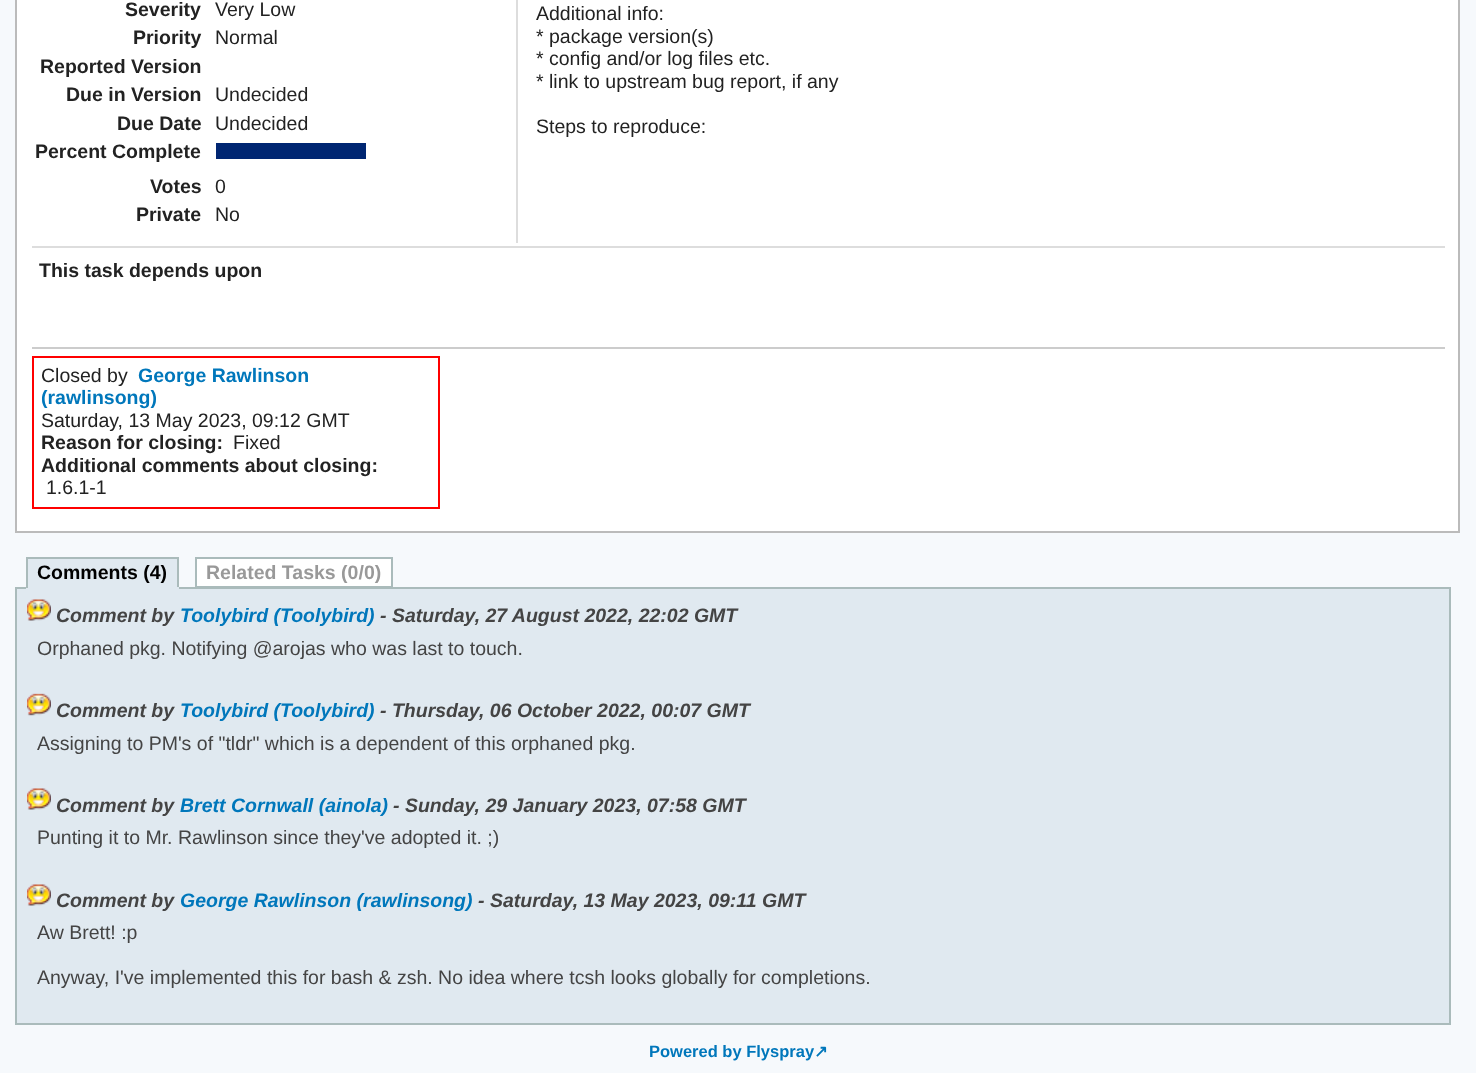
async function draw(canvas) {
  canvas.width = 1476
  canvas.height = 1073
  const ctx = canvas.getContext('2d')
  ctx.miterLimit = 4
  ctx.fontKerning = 'normal'
  async function loadImage(src) {
    const img = new Image()
    img.src = src
    await img.decode()
    return img
  }

  ctx.fillStyle = '#f6f9fc'
  ctx.fillRect(0, 0, 1476, 1073)
  ctx.fillStyle = '#fff'
  ctx.beginPath()
  ctx.rect(16, -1, 1443, 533)
  ctx.fill()
  ctx.strokeStyle = '#bbb'
  ctx.lineWidth = 2
  ctx.stroke()
  ctx.fillStyle = '#ddd'
  ctx.fillRect(516, 0, 2, 243)
  ctx.font = 'bold 19.5px Liberation Sans'
  ctx.fillStyle = '#222'
  ctx.fillText('Severity', 125, 16)
  ctx.font = '19.5px Liberation Sans'
  ctx.fillText('Very Low', 215, 16)
  ctx.font = 'bold 19.5px Liberation Sans'
  ctx.fillText('Priority', 133, 44)
  ctx.font = '19.5px Liberation Sans'
  ctx.fillText('Normal', 215, 44)
  ctx.font = 'bold 19.5px Liberation Sans'
  ctx.fillText('Reported Version', 40, 73)
  ctx.fillText('Due in Version', 66, 101)
  ctx.font = '19.5px Liberation Sans'
  ctx.fillText('Undecided', 215, 101)
  ctx.font = 'bold 19.5px Liberation Sans'
  ctx.fillText('Due Date', 117, 130)
  ctx.font = '19.5px Liberation Sans'
  ctx.fillText('Undecided', 215, 130)
  ctx.font = 'bold 19.5px Liberation Sans'
  ctx.fillText('Percent Complete', 35, 158)
  ctx.fillStyle = '#002672'
  ctx.fillRect(216, 143, 150, 16)
  ctx.fillStyle = '#222'
  ctx.fillText('Votes', 150, 193)
  ctx.font = '19.5px Liberation Sans'
  ctx.fillText('0', 215, 193)
  ctx.font = 'bold 19.5px Liberation Sans'
  ctx.fillText('Private', 136, 221)
  ctx.font = '19.5px Liberation Sans'
  ctx.fillText('No', 215, 221)
  ctx.fillText('Additional info:', 536, 20)
  ctx.fillText('* package version(s)', 536, 43)
  ctx.fillText('* config and/or log files etc.', 536, 65)
  ctx.fillText('* link to upstream bug report, if any', 536, 88)
  ctx.fillText('Steps to reproduce:', 536, 133)
  ctx.fillStyle = '#ddd'
  ctx.fillRect(32, 246, 1413, 2)
  ctx.fillStyle = '#ccc'
  ctx.fillRect(32, 347, 1413, 2)
  ctx.font = 'bold 19.5px Liberation Sans'
  ctx.fillStyle = '#222'
  ctx.fillText('This task depends upon', 39, 277)
  ctx.strokeStyle = '#f00'
  ctx.strokeRect(33, 357, 406, 151)
  ctx.font = '19.5px Liberation Sans'
  ctx.fillText('Closed by', 41, 382)
  ctx.font = 'bold 19.5px Liberation Sans'
  ctx.fillStyle = '#07b'
  ctx.fillText('George Rawlinson', 138, 382)
  ctx.fillText('(rawlinsong)', 41, 404)
  ctx.font = '19.5px Liberation Sans'
  ctx.fillStyle = '#222'
  ctx.fillText('Saturday, 13 May 2023, 09:12 GMT', 41, 427)
  ctx.font = 'bold 19.5px Liberation Sans'
  ctx.fillText('Reason for closing:', 41, 449)
  ctx.font = '19.5px Liberation Sans'
  ctx.fillText('Fixed', 233, 449)
  ctx.font = 'bold 19.5px Liberation Sans'
  ctx.fillText('Additional comments about closing:', 41, 472)
  ctx.font = '19.5px Liberation Sans'
  ctx.fillText('1.6.1-1', 46, 494)
  ctx.fillStyle = '#e0e9f0'
  ctx.fillRect(28, 559, 149, 28)
  ctx.font = 'bold 19.5px Liberation Sans'
  ctx.fillStyle = '#000'
  ctx.fillText('Comments (4)', 37, 579)
  ctx.fillStyle = '#abb'
  ctx.fillRect(26, 557, 153, 2)
  ctx.fillStyle = '#e0e9f0'
  ctx.beginPath()
  ctx.rect(16, 588, 1434, 436)
  ctx.fill()
  ctx.strokeStyle = '#abb'
  ctx.stroke()
  ctx.fillStyle = '#abb'
  ctx.fillRect(177, 557, 2, 31)
  ctx.fillStyle = '#e0e9f0'
  ctx.fillRect(26, 587, 153, 2)
  ctx.fillStyle = '#abb'
  ctx.fillRect(26, 557, 2, 31)
  ctx.fillStyle = '#fff'
  ctx.beginPath()
  ctx.rect(196, 558, 196, 29)
  ctx.fill()
  ctx.stroke()
  ctx.fillStyle = '#999'
  ctx.fillText('Related Tasks (0/0)', 206, 579)
  ctx.drawImage(await loadImage('image0.png'), 27, 599, 24, 22)
  ctx.font = 'italic bold 19.5px Liberation Sans'
  ctx.fillStyle = '#444'
  ctx.fillText('Comment by', 56, 622)
  ctx.fillStyle = '#07b'
  ctx.fillText('Toolybird (Toolybird)', 180, 622)
  ctx.fillStyle = '#444'
  ctx.fillText('- Saturday, 27 August 2022, 22:02 GMT', 380, 622)
  ctx.font = '19.5px Liberation Sans'
  ctx.fillText('Orphaned pkg. Notifying @arojas who was last to touch.', 37, 655)
  ctx.drawImage(await loadImage('image1.png'), 27, 693, 24, 23)
  ctx.font = 'italic bold 19.5px Liberation Sans'
  ctx.fillText('Comment by', 56, 717)
  ctx.fillStyle = '#07b'
  ctx.fillText('Toolybird (Toolybird)', 180, 717)
  ctx.fillStyle = '#444'
  ctx.fillText('- Thursday, 06 October 2022, 00:07 GMT', 380, 717)
  ctx.font = '19.5px Liberation Sans'
  ctx.fillText('Assigning to PM\'s of "tldr" which is a dependent of this orphaned pkg.', 37, 750)
  ctx.drawImage(await loadImage('image0.png'), 27, 788, 24, 22)
  ctx.font = 'italic bold 19.5px Liberation Sans'
  ctx.fillText('Comment by', 56, 812)
  ctx.fillStyle = '#07b'
  ctx.fillText('Brett Cornwall (ainola)', 180, 812)
  ctx.fillStyle = '#444'
  ctx.fillText('- Sunday, 29 January 2023, 07:58 GMT', 393, 812)
  ctx.font = '19.5px Liberation Sans'
  ctx.fillText('Punting it to Mr. Rawlinson since they\'ve adopted it. ;)', 37, 844)
  ctx.drawImage(await loadImage('image0.png'), 27, 884, 24, 22)
  ctx.font = 'italic bold 19.5px Liberation Sans'
  ctx.fillText('Comment by', 56, 907)
  ctx.fillStyle = '#07b'
  ctx.fillText('George Rawlinson (rawlinsong)', 180, 907)
  ctx.fillStyle = '#444'
  ctx.fillText('- Saturday, 13 May 2023, 09:11 GMT', 478, 907)
  ctx.font = '19.5px Liberation Sans'
  ctx.fillText('Aw Brett! :p', 37, 939)
  ctx.fillText('Anyway, I\'ve implemented this for bash & zsh. No idea where tcsh looks globally for completions.', 37, 984)
  ctx.font = 'bold 16.5px Liberation Sans'
  ctx.fillStyle = '#07b'
  ctx.fillText('Powered by Flyspray', 649, 1057)
  ctx.font = 'bold 16.5px DejaVu Sans'
  ctx.fillText('↗', 814, 1057)
}

draw(document.querySelector('canvas'))
